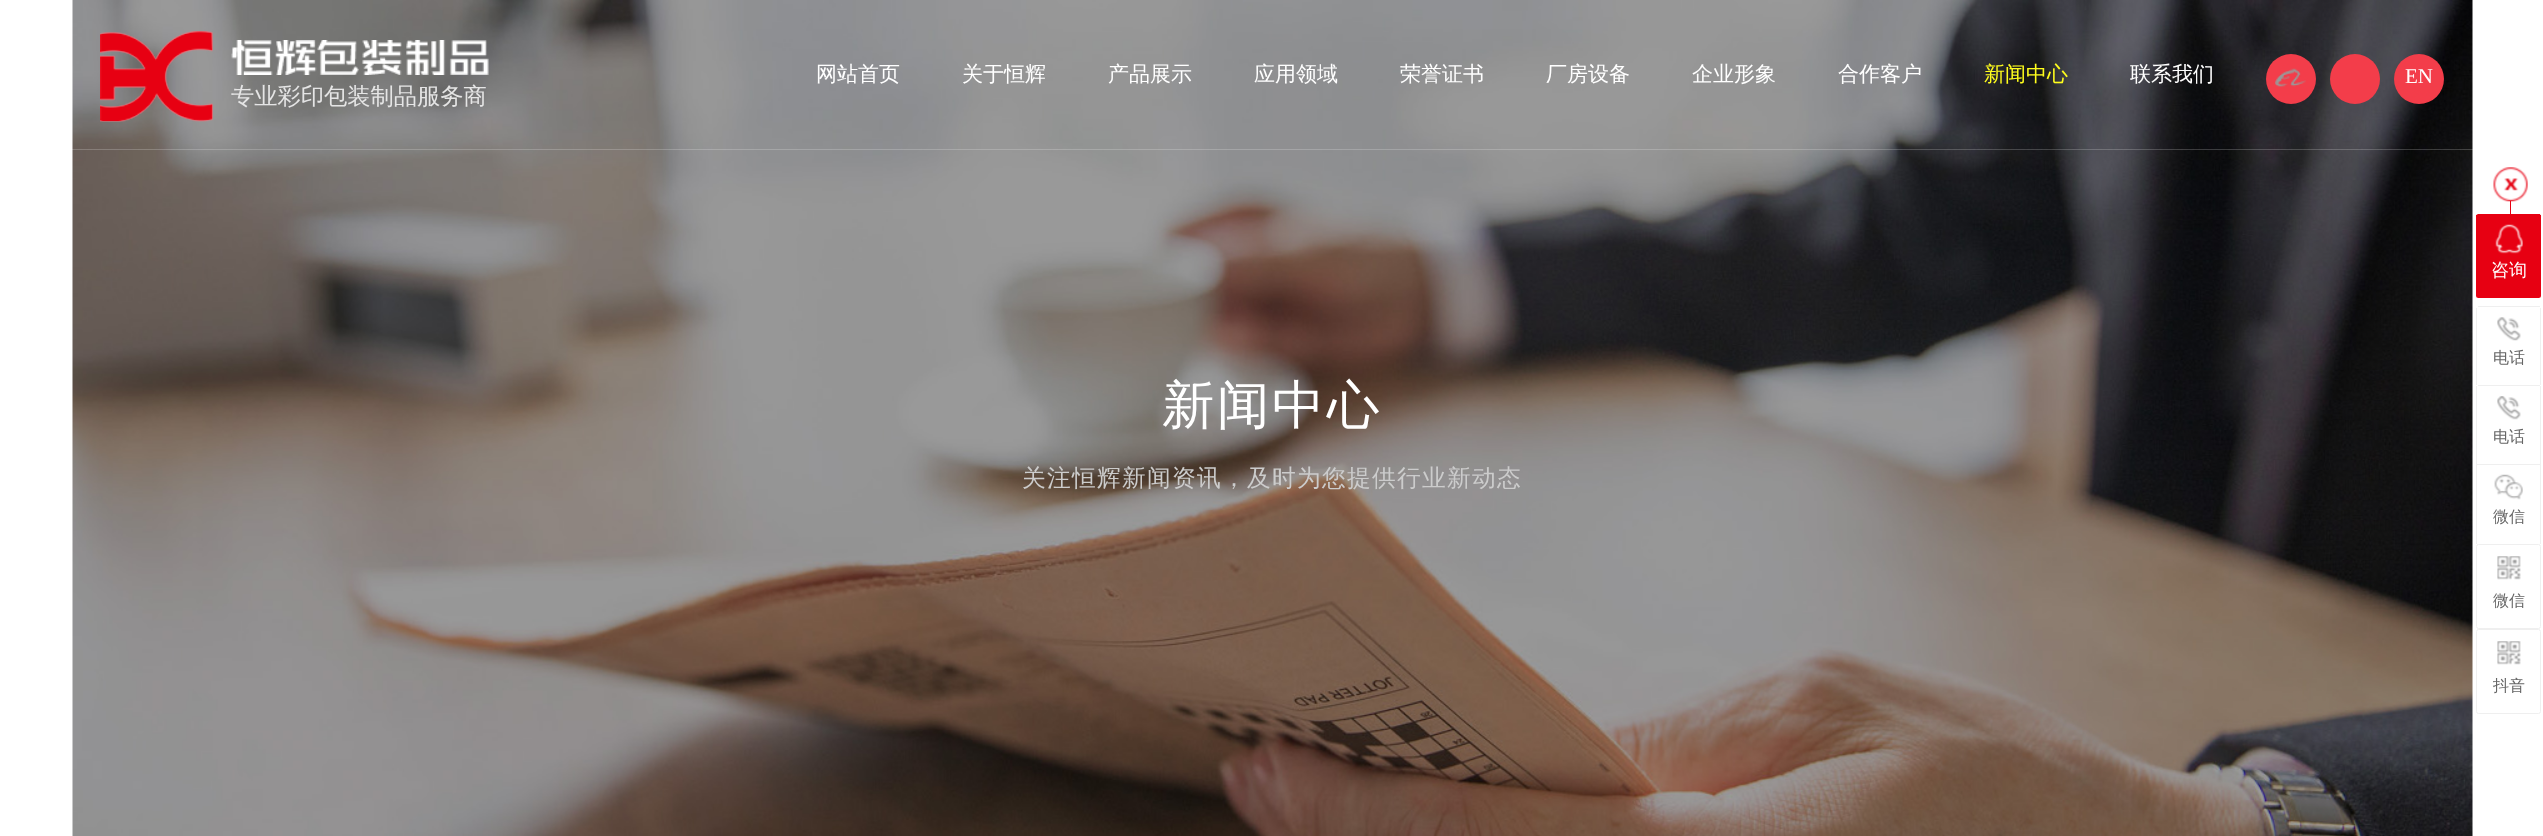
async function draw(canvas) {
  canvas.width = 2543
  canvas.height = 836
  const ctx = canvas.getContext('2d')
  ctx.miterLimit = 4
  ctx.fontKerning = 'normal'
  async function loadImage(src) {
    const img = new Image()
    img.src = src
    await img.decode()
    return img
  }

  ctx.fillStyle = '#fff'
  ctx.fillRect(0, 0, 2543, 836)
  ctx.drawImage(await loadImage('image4.png'), 72, 0, 2401, 836)
  ctx.fillStyle = '#ffffff33'
  ctx.fillRect(72, 149, 2401, 1)
  ctx.drawImage(await loadImage('image0.png'), 100, 31, 113, 91)
  ctx.drawImage(await loadImage('image1.png'), 100, 31, 113, 91)
  ctx.font = '500 21px WenQuanYi Zen Hei'
  ctx.fillStyle = '#fff'
  ctx.fillText('网站首页', 816, 81)
  ctx.fillText('关于恒辉', 962, 81)
  ctx.fillText('产品展示', 1108, 81)
  ctx.fillText('应用领域', 1254, 81)
  ctx.fillText('荣誉证书', 1400, 81)
  ctx.fillText('厂房设备', 1546, 81)
  ctx.fillText('企业形象', 1692, 81)
  ctx.fillText('合作客户', 1838, 81)
  ctx.fillStyle = '#fffd1d'
  ctx.fillText('新闻中心', 1984, 81)
  ctx.fillStyle = '#fff'
  ctx.fillText('联系我们', 2130, 81)
  ctx.fillStyle = '#f33d4a'
  ctx.beginPath()
  ctx.arc(2291, 79, 25, 0, 2 * Math.PI)
  ctx.fill()
  ctx.drawImage(await loadImage('image2.png'), 2275, 68, 31, 19)
  ctx.beginPath()
  ctx.arc(2355, 79, 25, 0, 2 * Math.PI)
  ctx.fill()
  ctx.beginPath()
  ctx.arc(2419, 79, 25, 0, 2 * Math.PI)
  ctx.fill()
  ctx.font = '21px Liberation Serif'
  ctx.fillStyle = '#fff'
  ctx.fillText('EN', 2405, 83)
  ctx.drawImage(await loadImage('image3.png'), 231, 40, 258, 35)
  ctx.font = '500 23.25px WenQuanYi Zen Hei'
  ctx.fillStyle = '#e5e5e5'
  ctx.fillText('专业彩印包装制品服务商', 231, 104)
  ctx.letterSpacing = '2.5px'
  ctx.font = '500 52.5px WenQuanYi Zen Hei'
  ctx.fillStyle = '#fff'
  ctx.fillText('新闻中心', 1162, 423)
  ctx.letterSpacing = '1.25px'
  ctx.font = '500 23.75px WenQuanYi Zen Hei'
  ctx.fillStyle = '#ccc'
  ctx.fillText('关注恒辉新闻资讯，及时为您提供行业新动态', 1022, 486)
  ctx.drawImage(await loadImage('image5.png'), 2493, 167, 35, 35)
  ctx.fillStyle = '#e70012'
  ctx.beginPath()
  ctx.roundRect(2476, 214, 65, 84, 2.5)
  ctx.fill()
  ctx.fillRect(2478, 214, 62, 1)
  ctx.fillRect(2510, 201, 1, 15)
  ctx.fillRect(2540, 215, 1, 81)
  ctx.fillRect(2476, 215, 1, 81)
  ctx.drawImage(await loadImage('image6.png'), 2495, 224, 28, 30)
  ctx.letterSpacing = '0px'
  ctx.font = '500 18px WenQuanYi Zen Hei'
  ctx.fillStyle = '#fff'
  ctx.fillText('咨询', 2491, 276)
  ctx.fillStyle = '#efefef'
  ctx.fillRect(2478, 306, 62, 1)
  ctx.fillRect(2540, 308, 1, 77)
  ctx.fillRect(2476, 308, 1, 77)
  ctx.drawImage(await loadImage('image7.png'), 2497, 317, 24, 24)
  ctx.font = '500 16px WenQuanYi Zen Hei'
  ctx.fillStyle = '#666'
  ctx.fillText('电话', 2493, 363)
  ctx.fillStyle = '#efefef'
  ctx.fillRect(2478, 385, 62, 1)
  ctx.fillRect(2540, 386, 1, 78)
  ctx.fillRect(2476, 386, 1, 78)
  ctx.drawImage(await loadImage('image8.png'), 2497, 396, 24, 24)
  ctx.fillStyle = '#666'
  ctx.fillText('电话', 2493, 442)
  ctx.fillStyle = '#efefef'
  ctx.fillRect(2476, 464, 65, 1)
  ctx.fillRect(2540, 464, 1, 80)
  ctx.fillRect(2476, 464, 1, 80)
  ctx.drawImage(await loadImage('image9.png'), 2494, 474, 29, 26)
  ctx.fillStyle = '#666'
  ctx.fillText('微信', 2493, 522)
  ctx.beginPath()
  ctx.roundRect(2476.5, 544.5, 64, 84, 2)
  ctx.strokeStyle = '#efefef'
  ctx.stroke()
  ctx.drawImage(await loadImage('image10.png'), 2497, 556, 24, 24)
  ctx.fillText('微信', 2493, 606)
  ctx.beginPath()
  ctx.roundRect(2476.5, 629.5, 64, 84, 2)
  ctx.stroke()
  ctx.drawImage(await loadImage('image10.png'), 2497, 641, 24, 24)
  ctx.fillText('抖音', 2493, 691)
}

draw(document.querySelector('canvas'))
